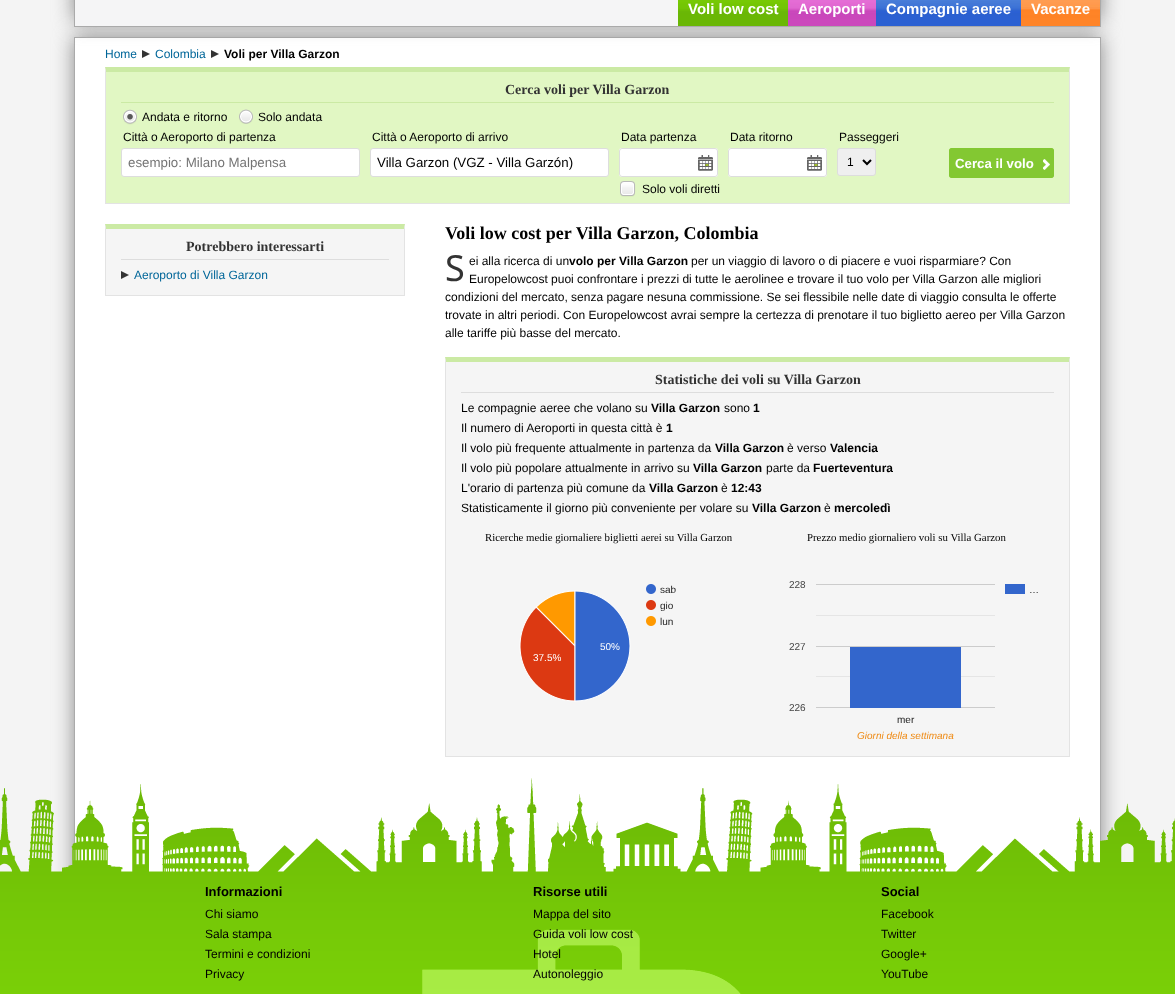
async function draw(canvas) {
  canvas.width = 1175
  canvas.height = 994
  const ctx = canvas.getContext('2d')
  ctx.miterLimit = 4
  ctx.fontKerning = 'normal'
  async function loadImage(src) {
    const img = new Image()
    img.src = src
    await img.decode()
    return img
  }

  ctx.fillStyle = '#f4f4f4'
  ctx.fillRect(0, 0, 1175, 994)
  ctx.fillStyle = '#888'
  ctx.filter = 'blur(10px)'
  ctx.beginPath()
  ctx.rect(74, 37, 1027, 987)
  ctx.fill()
  ctx.filter = 'none'
  ctx.fillStyle = '#fff'
  ctx.fillRect(75, 38, 1025, 834)
  ctx.strokeStyle = '#aaa'
  ctx.strokeRect(74.5, 37.5, 1026, 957)
  ctx.fillStyle = '#333'
  ctx.beginPath()
  ctx.moveTo(142, 58)
  ctx.lineTo(142, 50)
  ctx.lineTo(150, 54)
  ctx.closePath()
  ctx.fill()
  ctx.beginPath()
  ctx.moveTo(211, 58)
  ctx.lineTo(211, 50)
  ctx.lineTo(219, 54)
  ctx.closePath()
  ctx.fill()
  ctx.fillStyle = '#888'
  ctx.filter = 'blur(10px)'
  ctx.beginPath()
  ctx.rect(74, -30, 1027, 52)
  ctx.fill()
  ctx.filter = 'none'
  ctx.fillStyle = '#f5f5f6'
  ctx.fillRect(75, 0, 603, 26)
  ctx.fillStyle = '#aaa'
  ctx.fillRect(1100, 0, 1, 27)
  ctx.fillRect(74, 26, 1027, 1)
  ctx.fillRect(74, 0, 1, 27)
  ctx.drawImage(await loadImage('image0.png'), 678, 0, 110, 26)
  ctx.font = 'bold 15px Liberation Sans'
  ctx.fillStyle = '#fff'
  ctx.fillText('Voli low cost', 688, 14)
  ctx.drawImage(await loadImage('image1.png'), 788, 0, 88, 26)
  ctx.fillText('Aeroporti', 798, 14)
  ctx.drawImage(await loadImage('image2.png'), 876, 0, 145, 26)
  ctx.fillText('Compagnie aeree', 886, 14)
  ctx.drawImage(await loadImage('image3.png'), 1021, 0, 79, 26)
  ctx.fillText('Vacanze', 1031, 14)
  ctx.font = '12px Liberation Sans'
  ctx.fillStyle = '#069'
  ctx.fillText('Home', 105, 58)
  ctx.fillText('Colombia', 155, 58)
  ctx.font = 'bold 12px Liberation Sans'
  ctx.fillStyle = '#000'
  ctx.fillText('Voli per Villa Garzon', 224, 58)
  ctx.fillStyle = '#e1f7c3'
  ctx.fillRect(106, 72, 963, 131)
  ctx.fillStyle = '#cbeaa4'
  ctx.beginPath()
  ctx.moveTo(105, 67)
  ctx.lineTo(1070, 67)
  ctx.lineTo(1069, 72)
  ctx.lineTo(106, 72)
  ctx.closePath()
  ctx.fill()
  ctx.fillStyle = '#e3e3e3'
  ctx.beginPath()
  ctx.moveTo(1070, 67)
  ctx.lineTo(1070, 204)
  ctx.lineTo(1069, 203)
  ctx.lineTo(1069, 72)
  ctx.closePath()
  ctx.fill()
  ctx.fillRect(105, 203, 965, 1)
  ctx.beginPath()
  ctx.moveTo(105, 204)
  ctx.lineTo(105, 67)
  ctx.lineTo(106, 72)
  ctx.lineTo(106, 203)
  ctx.closePath()
  ctx.fill()
  ctx.fillStyle = '#cbeaa4'
  ctx.fillRect(121, 102, 933, 1)
  ctx.font = 'bold 14px Liberation Serif'
  ctx.fillStyle = '#333'
  ctx.fillText('Cerca voli per Villa Garzon', 505, 94)
  ctx.drawImage(await loadImage('image4.png'), 123, 109, 14, 16)
  ctx.font = '12px Liberation Sans'
  ctx.fillStyle = '#000'
  ctx.fillText('Andata e ritorno', 142, 121)
  ctx.drawImage(await loadImage('image5.png'), 239, 109, 14, 15)
  ctx.fillText('Solo andata', 258, 121)
  ctx.fillText('Città o Aeroporto di partenza', 123, 141)
  ctx.fillStyle = '#fff'
  ctx.beginPath()
  ctx.roundRect(121.5, 148.5, 238, 28, 2.5)
  ctx.fill()
  ctx.strokeStyle = '#ddd'
  ctx.stroke()
  ctx.font = '13.3px Liberation Sans'
  ctx.fillStyle = '#757575'
  ctx.fillText('esempio: Milano Malpensa', 128, 167)
  ctx.font = '12px Liberation Sans'
  ctx.fillStyle = '#000'
  ctx.fillText('Città o Aeroporto di arrivo', 372, 141)
  ctx.fillStyle = '#fff'
  ctx.beginPath()
  ctx.roundRect(370.5, 148.5, 238, 28, 2.5)
  ctx.fill()
  ctx.stroke()
  ctx.font = '13.3px Liberation Sans'
  ctx.fillStyle = '#000'
  ctx.fillText('Villa Garzon (VGZ - Villa Garzón)', 377, 167)
  ctx.font = '12px Liberation Sans'
  ctx.fillText('Data partenza', 621, 141)
  ctx.fillStyle = '#fff'
  ctx.beginPath()
  ctx.roundRect(619, 148, 99, 29, 3)
  ctx.fill()
  ctx.drawImage(await loadImage('image6.png'), 698, 155, 15, 16)
  ctx.beginPath()
  ctx.roundRect(619.5, 148.5, 98, 28, 2.5)
  ctx.stroke()
  ctx.fillStyle = '#000'
  ctx.fillText('Data ritorno', 730, 141)
  ctx.fillStyle = '#fff'
  ctx.beginPath()
  ctx.roundRect(728, 148, 99, 29, 3)
  ctx.fill()
  ctx.drawImage(await loadImage('image6.png'), 807, 155, 15, 16)
  ctx.beginPath()
  ctx.roundRect(728.5, 148.5, 98, 28, 2.5)
  ctx.stroke()
  ctx.fillStyle = '#000'
  ctx.fillText('Passeggeri', 839, 141)
  ctx.fillStyle = '#efefef'
  ctx.beginPath()
  ctx.roundRect(837.5, 148.5, 38, 27, 2.5)
  ctx.fill()
  ctx.stroke()
  ctx.beginPath()
  ctx.moveTo(863, 160)
  ctx.lineTo(867, 164)
  ctx.lineTo(871, 160)
  ctx.strokeStyle = '#000'
  ctx.lineWidth = 2
  ctx.stroke()
  ctx.fillStyle = '#000'
  ctx.fillText('1', 847, 166)
  ctx.drawImage(await loadImage('image7.png'), 620, 181, 16, 16)
  ctx.fillText('Solo voli diretti', 642, 193)
  ctx.fillStyle = '#83c832'
  ctx.beginPath()
  ctx.roundRect(949, 148, 105, 30, 3)
  ctx.fill()
  ctx.drawImage(await loadImage('image8.png'), 1043, 159, 7, 11)
  ctx.beginPath()
  ctx.roundRect(949.5, 148.5, 104, 29, 2.5)
  ctx.strokeStyle = '#83c832'
  ctx.lineWidth = 1
  ctx.stroke()
  ctx.font = 'bold 13.25px Liberation Sans'
  ctx.fillStyle = '#fff'
  ctx.fillText('Cerca il volo', 955, 168)
  ctx.fillStyle = '#f5f5f5'
  ctx.fillRect(106, 229, 298, 66)
  ctx.fillStyle = '#cbeaa4'
  ctx.beginPath()
  ctx.moveTo(105, 224)
  ctx.lineTo(405, 224)
  ctx.lineTo(404, 229)
  ctx.lineTo(106, 229)
  ctx.closePath()
  ctx.fill()
  ctx.fillStyle = '#e3e3e3'
  ctx.beginPath()
  ctx.moveTo(405, 224)
  ctx.lineTo(405, 296)
  ctx.lineTo(404, 295)
  ctx.lineTo(404, 229)
  ctx.closePath()
  ctx.fill()
  ctx.fillRect(105, 295, 300, 1)
  ctx.beginPath()
  ctx.moveTo(105, 296)
  ctx.lineTo(105, 224)
  ctx.lineTo(106, 229)
  ctx.lineTo(106, 295)
  ctx.closePath()
  ctx.fill()
  ctx.fillStyle = '#ddd'
  ctx.fillRect(121, 259, 268, 1)
  ctx.font = 'bold 14px Liberation Serif'
  ctx.fillStyle = '#333'
  ctx.fillText('Potrebbero interessarti', 186, 251)
  ctx.beginPath()
  ctx.moveTo(121, 279)
  ctx.lineTo(121, 271)
  ctx.lineTo(129, 275)
  ctx.closePath()
  ctx.fill()
  ctx.font = '12px Liberation Sans'
  ctx.fillStyle = '#069'
  ctx.fillText('Aeroporto di Villa Garzon', 134, 279)
  ctx.font = 'bold 18px Liberation Serif'
  ctx.fillStyle = '#000'
  ctx.fillText('Voli low cost per Villa Garzon, Colombia', 445, 239)
  ctx.font = '36px Noto Sans'
  ctx.fillStyle = '#333'
  ctx.fillText('S', 445, 281)
  ctx.font = '12px Liberation Sans'
  ctx.fillStyle = '#000'
  ctx.fillText('ei alla ricerca di un', 469, 265)
  ctx.font = 'bold 12px Liberation Sans'
  ctx.fillText('volo per Villa Garzon', 569, 265)
  ctx.font = '12px Liberation Sans'
  ctx.fillText('per un viaggio di lavoro o di piacere e vuoi risparmiare? Con', 691, 265)
  ctx.fillText('Europelowcost puoi confrontare i prezzi di tutte le aerolinee e trovare il tuo volo per Villa Garzon alle migliori', 469, 283)
  ctx.fillText('condizioni del mercato, senza pagare nesuna commissione. Se sei flessibile nelle date di viaggio consulta le offerte', 445, 301)
  ctx.fillText('trovate in altri periodi. Con Europelowcost avrai sempre la certezza di prenotare il tuo biglietto aereo per Villa Garzon', 445, 319)
  ctx.fillText('alle tariffe più basse del mercato.', 445, 337)
  ctx.fillStyle = '#f5f5f5'
  ctx.fillRect(446, 362, 623, 394)
  ctx.fillStyle = '#cbeaa4'
  ctx.beginPath()
  ctx.moveTo(445, 357)
  ctx.lineTo(1070, 357)
  ctx.lineTo(1069, 362)
  ctx.lineTo(446, 362)
  ctx.closePath()
  ctx.fill()
  ctx.fillStyle = '#e3e3e3'
  ctx.beginPath()
  ctx.moveTo(1070, 357)
  ctx.lineTo(1070, 757)
  ctx.lineTo(1069, 756)
  ctx.lineTo(1069, 362)
  ctx.closePath()
  ctx.fill()
  ctx.fillRect(445, 756, 625, 1)
  ctx.beginPath()
  ctx.moveTo(445, 757)
  ctx.lineTo(445, 357)
  ctx.lineTo(446, 362)
  ctx.lineTo(446, 756)
  ctx.closePath()
  ctx.fill()
  ctx.fillStyle = '#ddd'
  ctx.fillRect(461, 392, 593, 1)
  ctx.font = 'bold 14px Liberation Serif'
  ctx.fillStyle = '#333'
  ctx.fillText('Statistiche dei voli su Villa Garzon', 655, 384)
  ctx.font = '12px Liberation Sans'
  ctx.fillStyle = '#000'
  ctx.fillText('Le compagnie aeree che volano su', 461, 412)
  ctx.font = 'bold 12px Liberation Sans'
  ctx.fillText('Villa Garzon', 651, 412)
  ctx.font = '12px Liberation Sans'
  ctx.fillText('sono', 724, 412)
  ctx.font = 'bold 12px Liberation Sans'
  ctx.fillText('1', 753, 412)
  ctx.font = '12px Liberation Sans'
  ctx.fillText('Il numero di Aeroporti in questa città è', 461, 432)
  ctx.font = 'bold 12px Liberation Sans'
  ctx.fillText('1', 666, 432)
  ctx.font = '12px Liberation Sans'
  ctx.fillText('Il volo più frequente attualmente in partenza da', 461, 452)
  ctx.font = 'bold 12px Liberation Sans'
  ctx.fillText('Villa Garzon', 715, 452)
  ctx.font = '12px Liberation Sans'
  ctx.fillText('è verso', 787, 452)
  ctx.font = 'bold 12px Liberation Sans'
  ctx.fillText('Valencia', 830, 452)
  ctx.font = '12px Liberation Sans'
  ctx.fillText('Il volo più popolare attualmente in arrivo su', 461, 472)
  ctx.font = 'bold 12px Liberation Sans'
  ctx.fillText('Villa Garzon', 693, 472)
  ctx.font = '12px Liberation Sans'
  ctx.fillText('parte da', 766, 472)
  ctx.font = 'bold 12px Liberation Sans'
  ctx.fillText('Fuerteventura', 813, 472)
  ctx.font = '12px Liberation Sans'
  ctx.fillText('L\'orario di partenza più comune da', 461, 492)
  ctx.font = 'bold 12px Liberation Sans'
  ctx.fillText('Villa Garzon', 649, 492)
  ctx.font = '12px Liberation Sans'
  ctx.fillText('è', 721, 492)
  ctx.font = 'bold 12px Liberation Sans'
  ctx.fillText('12:43', 731, 492)
  ctx.font = '12px Liberation Sans'
  ctx.fillText('Statisticamente il giorno più conveniente per volare su', 461, 512)
  ctx.font = 'bold 12px Liberation Sans'
  ctx.fillText('Villa Garzon', 752, 512)
  ctx.font = '12px Liberation Sans'
  ctx.fillText('è', 824, 512)
  ctx.font = 'bold 12px Liberation Sans'
  ctx.fillText('mercoledì', 834, 512)
  ctx.font = '10.8px Liberation Serif'
  ctx.fillText('Ricerche medie giornaliere biglietti aerei su Villa Garzon', 485, 541)
  ctx.drawImage(await loadImage('image9.png'), 519, 584, 137, 118)
  ctx.font = '10px Liberation Sans'
  ctx.fillStyle = '#222'
  ctx.fillText('sab', 660, 593)
  ctx.fillText('gio', 660, 609)
  ctx.fillText('lun', 660, 625)
  ctx.fillStyle = '#fff'
  ctx.fillText('50%', 600, 650)
  ctx.fillText('37.5%', 533, 661)
  ctx.font = '10.8px Liberation Serif'
  ctx.fillStyle = '#000'
  ctx.fillText('Prezzo medio giornaliero voli su Villa Garzon', 807, 541)
  ctx.font = '10px Liberation Sans'
  ctx.fillStyle = '#444'
  ctx.fillText('228', 789, 588)
  ctx.fillStyle = '#ccc'
  ctx.fillRect(816, 584, 179, 1)
  ctx.fillStyle = '#e5e5e5'
  ctx.fillRect(816, 615, 179, 1)
  ctx.fillStyle = '#222'
  ctx.fillText('…', 1029, 593)
  ctx.fillStyle = '#36c'
  ctx.fillRect(1005, 584, 20, 10)
  ctx.fillStyle = '#444'
  ctx.fillText('227', 789, 650)
  ctx.fillStyle = '#ccc'
  ctx.fillRect(816, 646, 179, 1)
  ctx.fillStyle = '#e5e5e5'
  ctx.fillRect(816, 676, 179, 1)
  ctx.fillStyle = '#444'
  ctx.fillText('226', 789, 711)
  ctx.fillStyle = '#ccc'
  ctx.fillRect(816, 707, 179, 1)
  ctx.fillStyle = '#222'
  ctx.fillText('mer', 897, 723)
  ctx.fillStyle = '#36c'
  ctx.fillRect(850, 647, 111, 61)
  ctx.font = 'italic 10px Liberation Sans'
  ctx.fillStyle = '#ef8a13'
  ctx.fillText('Giorni della settimana', 857, 739)
  ctx.drawImage(await loadImage('image10.png'), 0, 778, 1175, 216)
  ctx.font = 'bold 13px Liberation Sans'
  ctx.fillStyle = '#000'
  ctx.fillText('Informazioni', 205, 896)
  ctx.font = '12px Liberation Sans'
  ctx.fillText('Chi siamo', 205, 918)
  ctx.fillText('Sala stampa', 205, 938)
  ctx.fillText('Termini e condizioni', 205, 958)
  ctx.fillText('Privacy', 205, 978)
  ctx.font = 'bold 13px Liberation Sans'
  ctx.fillText('Risorse utili', 533, 896)
  ctx.font = '12px Liberation Sans'
  ctx.fillText('Mappa del sito', 533, 918)
  ctx.fillText('Guida voli low cost', 533, 938)
  ctx.fillText('Hotel', 533, 958)
  ctx.fillText('Autonoleggio', 533, 978)
  ctx.font = 'bold 13px Liberation Sans'
  ctx.fillText('Social', 881, 896)
  ctx.font = '12px Liberation Sans'
  ctx.fillText('Facebook', 881, 918)
  ctx.fillText('Twitter', 881, 938)
  ctx.fillText('Google+', 881, 958)
  ctx.fillText('YouTube', 881, 978)
}

draw(document.querySelector('canvas'))
